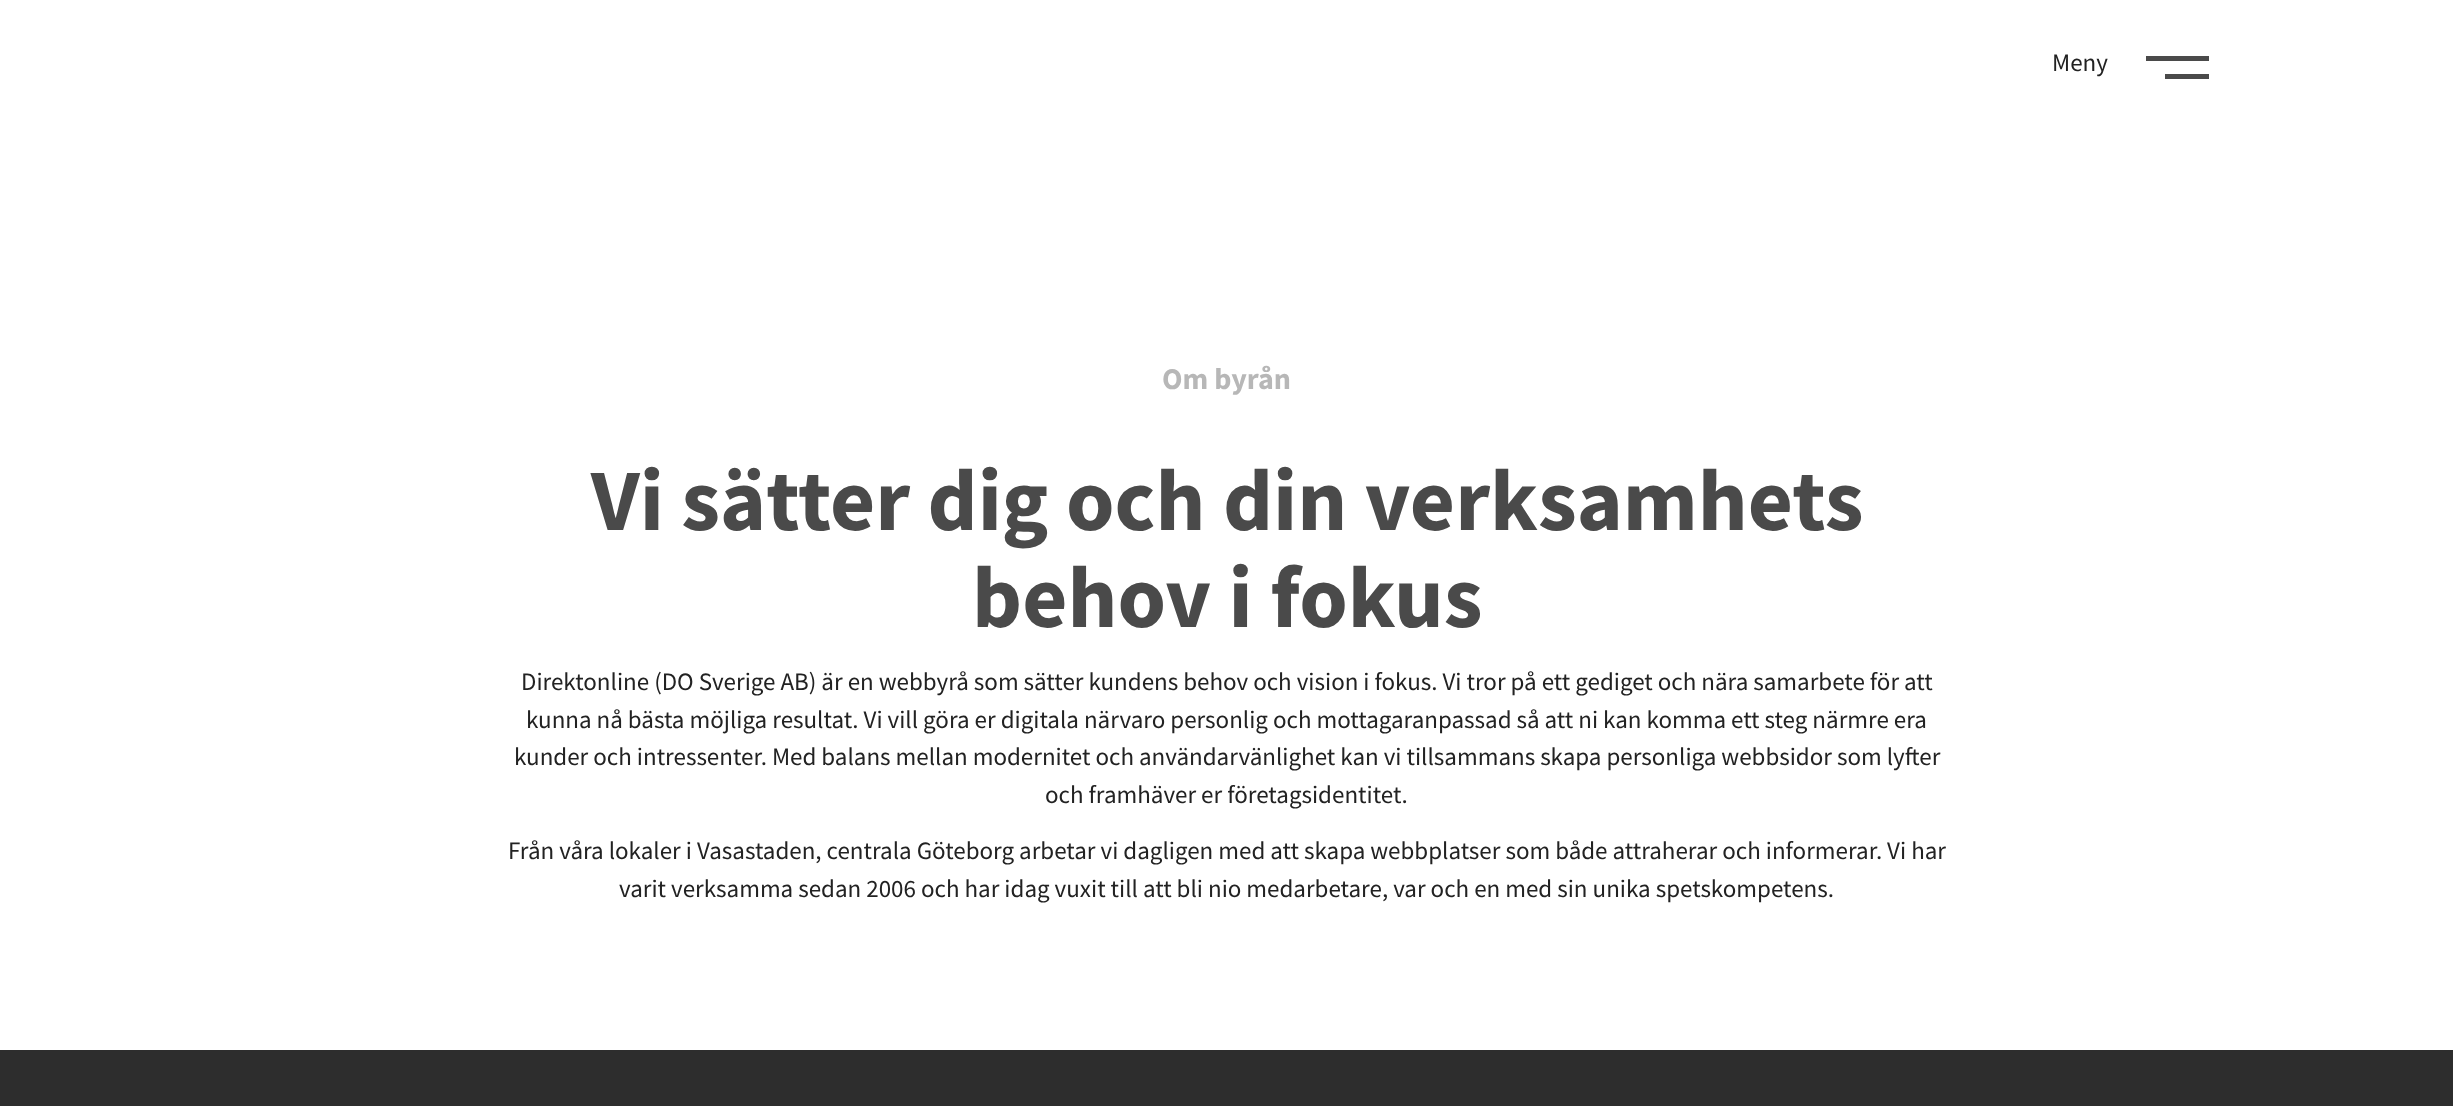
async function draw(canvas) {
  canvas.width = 2453
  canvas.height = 1106
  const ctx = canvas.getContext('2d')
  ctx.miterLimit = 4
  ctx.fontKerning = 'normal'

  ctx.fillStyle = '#fff'
  ctx.fillRect(0, 0, 2453, 1106)
  ctx.font = '25px Source Sans Pro'
  ctx.fillStyle = '#222'
  ctx.fillText('Meny', 2052, 71)
  ctx.fillStyle = '#4a4a4a'
  ctx.fillRect(2146, 56, 63, 5)
  ctx.fillRect(2165, 74, 44, 5)
  ctx.font = 'bold 30px Source Sans Pro'
  ctx.fillStyle = '#b7b7b7'
  ctx.fillText('Om byrån', 1162, 389)
  ctx.font = 'bold 87.5px Source Sans Pro'
  ctx.fillStyle = '#4a4a4a'
  ctx.fillText('Vi sätter dig och din verksamhets', 591, 530)
  ctx.fillText('behov i fokus', 972, 627)
  ctx.font = '25px Source Sans Pro'
  ctx.fillStyle = '#222'
  ctx.fillText('Direktonline (DO Sverige AB) är en webbyrå som sätter kundens behov och vision i fokus. Vi tror på ett gediget och nära samarbete för att', 521, 690)
  ctx.fillText('kunna nå bästa möjliga resultat. Vi vill göra er digitala närvaro personlig och mottagaranpassad så att ni kan komma ett steg närmre era', 526, 728)
  ctx.fillText('kunder och intressenter. Med balans mellan modernitet och användarvänlighet kan vi tillsammans skapa personliga webbsidor som lyfter', 514, 765)
  ctx.fillText('och framhäver er företagsidentitet.', 1045, 803)
  ctx.fillText('Från våra lokaler i Vasastaden, centrala Göteborg arbetar vi dagligen med att skapa webbplatser som både attraherar och informerar. Vi har', 508, 859)
  ctx.fillText('varit verksamma sedan 2006 och har idag vuxit till att bli nio medarbetare, var och en med sin unika spetskompetens.', 619, 897)
  ctx.fillStyle = '#2d2d2d'
  ctx.fillRect(0, 1050, 2453, 56)
}

draw(document.querySelector('canvas'))
